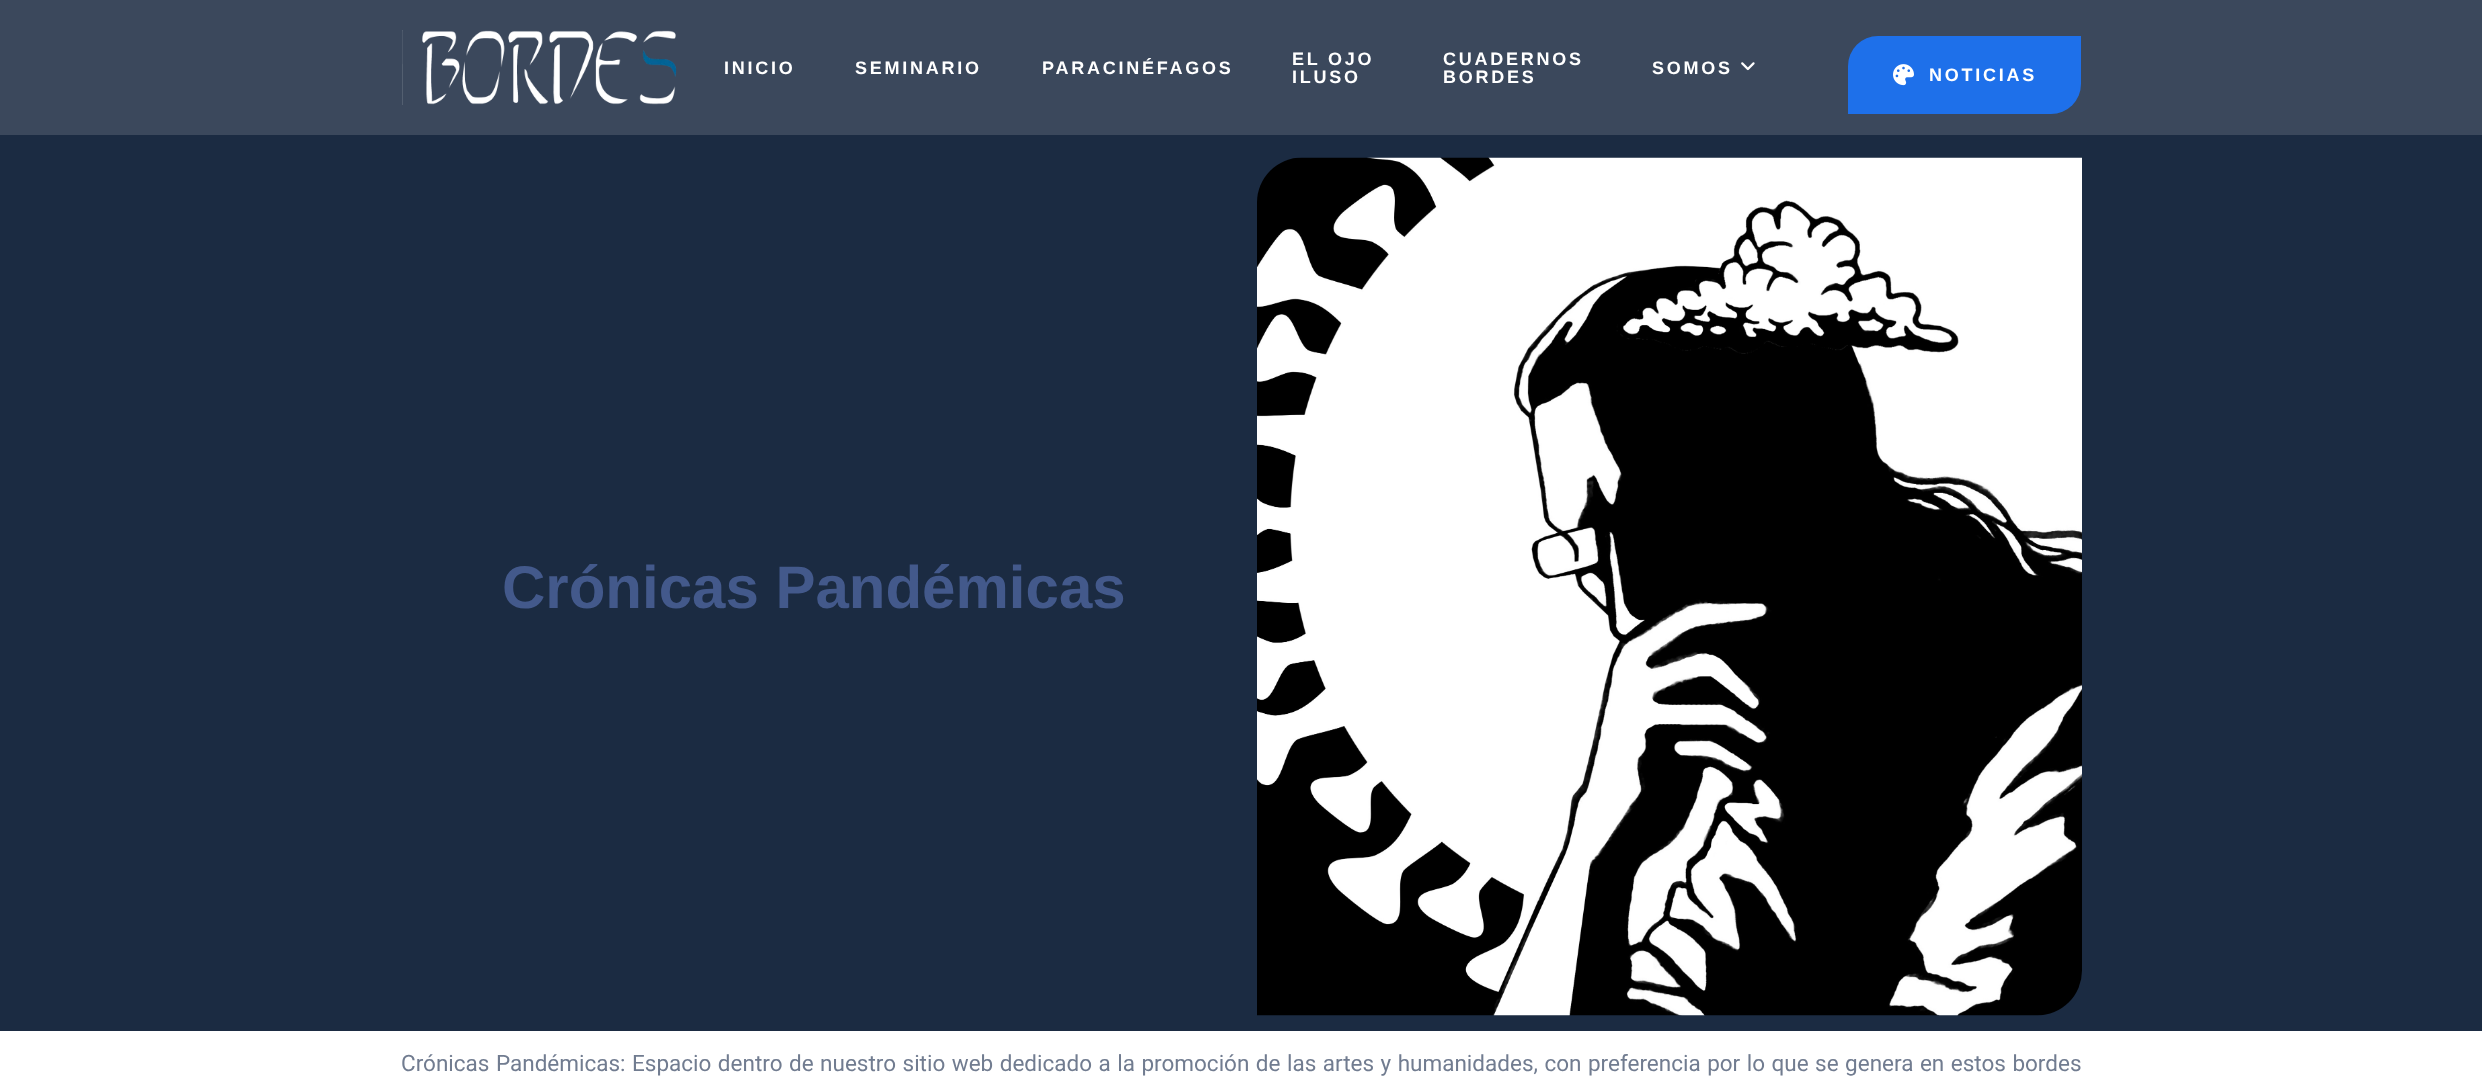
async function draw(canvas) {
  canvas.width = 2482
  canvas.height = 1092
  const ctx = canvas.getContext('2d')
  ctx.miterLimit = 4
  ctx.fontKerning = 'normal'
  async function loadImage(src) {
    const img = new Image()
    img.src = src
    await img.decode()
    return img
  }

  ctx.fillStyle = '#fff'
  ctx.fillRect(0, 0, 2482, 1092)
  ctx.fillStyle = '#3b485c'
  ctx.fillRect(0, 0, 2482, 135)
  ctx.drawImage(await loadImage('image0.png'), 402, 30, 275, 75)
  ctx.letterSpacing = '2.75px'
  ctx.font = 'bold 18px Liberation Sans'
  ctx.fillStyle = '#fff'
  ctx.fillText('INICIO', 724, 74)
  ctx.fillText('SEMINARIO', 855, 74)
  ctx.fillText('PARACINÉFAGOS', 1042, 74)
  ctx.fillText('EL OJO', 1292, 65)
  ctx.fillText('ILUSO', 1292, 83)
  ctx.fillText('CUADERNOS', 1443, 65)
  ctx.fillText('BORDES', 1443, 83)
  ctx.fillText('SOMOS', 1652, 74)
  ctx.drawImage(await loadImage('image1.png'), 1741, 62, 14, 9)
  ctx.fillStyle = '#1e70ea'
  ctx.beginPath()
  ctx.roundRect(1848, 36, 233, 78, [30, 0, 30, 0])
  ctx.fill()
  ctx.drawImage(await loadImage('image2.png'), 1893, 64, 21, 22)
  ctx.fillStyle = '#fff'
  ctx.fillText('NOTICIAS', 1929, 81)
  ctx.fillStyle = '#1b2b42'
  ctx.fillRect(0, 135, 2482, 896)
  ctx.letterSpacing = '0px'
  ctx.font = 'bold 60px Liberation Sans'
  ctx.fillStyle = '#43598b'
  ctx.fillText('Crónicas Pandémicas', 502, 608)
  ctx.drawImage(await loadImage('image3.png'), 1257, 157, 825, 859)
  ctx.wordSpacing = '0.9px'
  ctx.font = '22.5px Roboto'
  ctx.fillStyle = '#717c90'
  ctx.fillText('Crónicas Pandémicas: Espacio dentro de nuestro sitio web dedicado a la promoción de las artes y humanidades, con preferencia por lo que se genera en estos bordes', 401, 1071)
}

draw(document.querySelector('canvas'))
